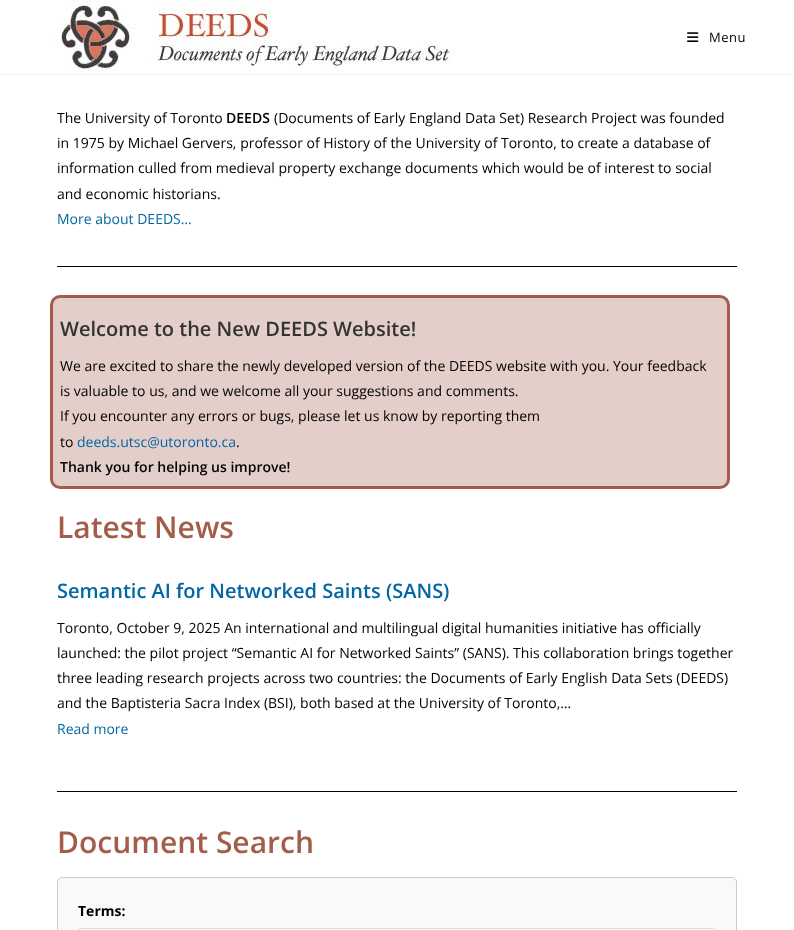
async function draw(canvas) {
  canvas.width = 794
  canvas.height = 930
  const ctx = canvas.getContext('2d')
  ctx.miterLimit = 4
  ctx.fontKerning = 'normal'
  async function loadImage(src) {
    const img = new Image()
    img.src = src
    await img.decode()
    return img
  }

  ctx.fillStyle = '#fff'
  ctx.fillRect(0, 0, 794, 930)
  ctx.fillStyle = '#f1f1f1'
  ctx.fillRect(0, 74, 794, 1)
  ctx.drawImage(await loadImage('image0.png'), 55, 0, 400, 72)
  ctx.drawImage(await loadImage('image1.png'), 687, 32, 12, 10)
  ctx.letterSpacing = '0.5px'
  ctx.font = '13px Open Sans'
  ctx.fillStyle = '#000'
  ctx.fillText('Menu', 709, 42)
  ctx.letterSpacing = '0px'
  ctx.font = '14px Open Sans'
  ctx.fillText('The University of Toronto', 57, 123)
  ctx.font = '600 14px Open Sans'
  ctx.fillText('DEEDS', 226, 123)
  ctx.font = '14px Open Sans'
  ctx.fillText('(Documents of Early England Data Set) Research Project was founded', 274, 123)
  ctx.fillText('in 1975 by Michael Gervers, professor of History of the University of Toronto, to create a database of', 57, 148)
  ctx.fillText('information culled from medieval property exchange documents which would be of interest to social', 57, 173)
  ctx.fillText('and economic historians.', 57, 199)
  ctx.fillStyle = '#0366a5'
  ctx.fillText('More about DEEDS…', 57, 224)
  ctx.fillStyle = '#000'
  ctx.fillRect(57, 266, 680, 1)
  ctx.fillStyle = '#e3cec9'
  ctx.beginPath()
  ctx.roundRect(51.5, 296.5, 677, 191, 8.5)
  ctx.fill()
  ctx.strokeStyle = '#a45b4d'
  ctx.lineWidth = 3
  ctx.stroke()
  ctx.font = '600 20px Open Sans'
  ctx.fillStyle = '#333'
  ctx.fillText('Welcome to the New DEEDS Website!', 60, 336)
  ctx.font = '14px Open Sans'
  ctx.fillStyle = '#000'
  ctx.fillText('We are excited to share the newly developed version of the DEEDS website with you. Your feedback', 60, 371)
  ctx.fillText('is valuable to us, and we welcome all your suggestions and comments.', 60, 396)
  ctx.fillText('If you encounter any errors or bugs, please let us know by reporting them', 60, 421)
  ctx.fillText('to', 60, 447)
  ctx.fillStyle = '#0366a5'
  ctx.fillText('deeds.utsc@utoronto.ca', 77, 447)
  ctx.fillStyle = '#000'
  ctx.fillText('.', 236, 447)
  ctx.font = '600 14px Open Sans'
  ctx.fillText('Thank you for helping us improve!', 60, 472)
  ctx.font = '600 30px Open Sans'
  ctx.fillStyle = '#a45d4b'
  ctx.fillText('Latest News', 57, 538)
  ctx.font = '600 20px Open Sans'
  ctx.fillStyle = '#0366a5'
  ctx.fillText('Semantic AI for Networked Saints (SANS)', 57, 598)
  ctx.font = '14px Open Sans'
  ctx.fillStyle = '#000'
  ctx.fillText('Toronto, October 9, 2025 An international and multilingual digital humanities initiative has officially', 57, 633)
  ctx.fillText('launched: the pilot project “Semantic AI for Networked Saints” (SANS). This collaboration brings together', 57, 658)
  ctx.fillText('three leading research projects across two countries: the Documents of Early English Data Sets (DEEDS)', 57, 683)
  ctx.fillText('and the Baptisteria Sacra Index (BSI), both based at the University of Toronto,…', 57, 708)
  ctx.fillStyle = '#0366a5'
  ctx.fillText('Read more', 57, 734)
  ctx.fillStyle = '#000'
  ctx.fillRect(57, 791, 680, 1)
  ctx.font = '600 30px Open Sans'
  ctx.fillStyle = '#a45d4b'
  ctx.fillText('Document Search', 57, 853)
  ctx.fillStyle = '#f9f9f9'
  ctx.beginPath()
  ctx.roundRect(57.5, 877.5, 679, 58, 4.5)
  ctx.fill()
  ctx.strokeStyle = '#ccc'
  ctx.lineWidth = 1
  ctx.stroke()
  ctx.font = 'bold 14px Open Sans'
  ctx.fillStyle = '#000'
  ctx.fillText('Terms:', 78, 916)
  ctx.beginPath()
  ctx.roundRect(78.5, 928.5, 637, 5, 2.5)
  ctx.strokeStyle = '#ddd'
  ctx.stroke()
}

draw(document.querySelector('canvas'))
